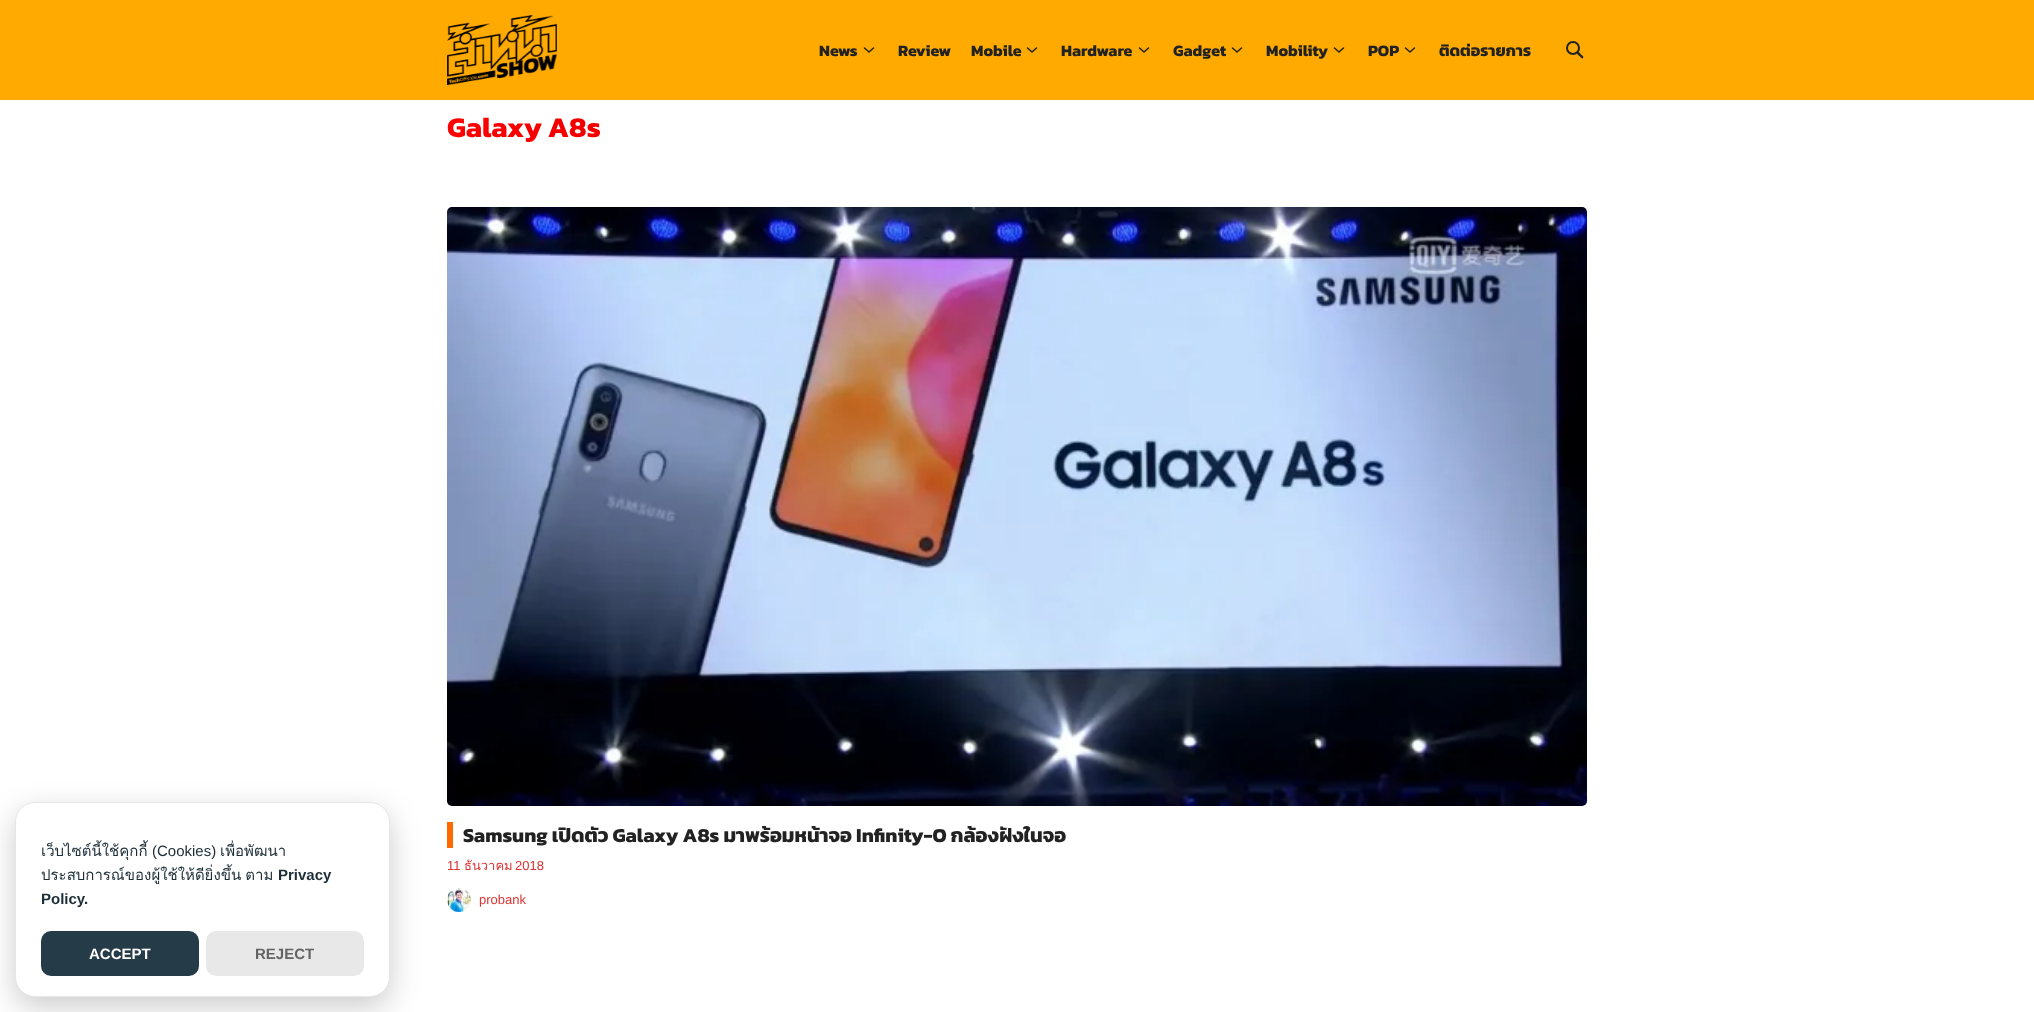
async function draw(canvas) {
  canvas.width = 2034
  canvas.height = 1012
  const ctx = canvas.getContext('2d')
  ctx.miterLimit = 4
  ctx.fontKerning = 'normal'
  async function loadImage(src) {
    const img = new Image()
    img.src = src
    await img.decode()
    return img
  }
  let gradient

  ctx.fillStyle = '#fff'
  ctx.fillRect(0, 0, 2034, 1012)
  ctx.fillStyle = '#02020333'
  ctx.filter = 'blur(15px)'
  ctx.beginPath()
  ctx.roundRect(15, 812, 375, 195, 20)
  ctx.fill()
  ctx.filter = 'none'
  ctx.fillStyle = '#fff'
  ctx.beginPath()
  ctx.roundRect(15.5, 802.5, 374, 194, 19.5)
  ctx.fill()
  ctx.strokeStyle = '#e6e6e6'
  ctx.stroke()
  ctx.font = '15px Loma'
  ctx.fillStyle = '#1d2e38'
  ctx.fillText('เว็บไซต์นี้ใช้คุกกี้', 41, 856)
  ctx.font = '15px Liberation Sans'
  ctx.fillText('(Cookies)', 152, 856)
  ctx.font = '15px Loma'
  ctx.fillText('เพื่อพัฒนา', 220, 856)
  ctx.wordSpacing = '-1px'
  ctx.fillText('ประสบการณ์ของผู้ใช้ให้ดียิ่งขึ้น ตาม', 41, 880)
  ctx.wordSpacing = '0px'
  ctx.font = 'bold 15px Liberation Sans'
  ctx.fillText('Privacy', 278, 880)
  ctx.fillText('Policy.', 41, 904)
  ctx.fillStyle = '#253b48'
  ctx.beginPath()
  ctx.roundRect(41, 931, 158, 45, 10)
  ctx.fill()
  ctx.fillStyle = '#fff'
  ctx.fillText('ACCEPT', 89, 959)
  ctx.fillStyle = '#e8e8e8'
  ctx.beginPath()
  ctx.roundRect(206, 931, 158, 45, 10)
  ctx.fill()
  ctx.fillStyle = '#636363'
  ctx.fillText('REJECT', 255, 959)
  ctx.fillStyle = '#fa0'
  ctx.fillRect(0, 0, 2034, 100)
  ctx.drawImage(await loadImage('image0.png'), 447, 15, 110, 70)
  ctx.font = 'bold 16px Kanit'
  ctx.fillStyle = '#222'
  ctx.fillText('News', 819, 56)
  ctx.beginPath()
  ctx.moveTo(864.5, 48)
  ctx.lineTo(869, 52)
  ctx.lineTo(873.5, 48)
  ctx.strokeStyle = '#222'
  ctx.lineWidth = 1.5
  ctx.lineCap = 'round'
  ctx.lineJoin = 'round'
  ctx.stroke()
  ctx.fillText('Review', 898, 56)
  ctx.fillText('Mobile', 971, 56)
  ctx.beginPath()
  ctx.moveTo(1027.5, 48)
  ctx.lineTo(1032, 52)
  ctx.lineTo(1036.5, 48)
  ctx.stroke()
  ctx.fillText('Hardware', 1061, 56)
  ctx.beginPath()
  ctx.moveTo(1139.5, 48)
  ctx.lineTo(1144, 52)
  ctx.lineTo(1148.5, 48)
  ctx.stroke()
  ctx.fillText('Gadget', 1173, 56)
  ctx.beginPath()
  ctx.moveTo(1232.5, 48)
  ctx.lineTo(1237, 52)
  ctx.lineTo(1241.5, 48)
  ctx.stroke()
  ctx.fillText('Mobility', 1266, 56)
  ctx.beginPath()
  ctx.moveTo(1334.5, 48)
  ctx.lineTo(1339, 52)
  ctx.lineTo(1343.5, 48)
  ctx.stroke()
  ctx.fillText('POP', 1368, 56)
  ctx.beginPath()
  ctx.moveTo(1405.5, 48)
  ctx.lineTo(1410, 52)
  ctx.lineTo(1414.5, 48)
  ctx.stroke()
  ctx.fillText('ติดต่อรายการ', 1439, 56)
  ctx.beginPath()
  ctx.moveTo(1577.5, 52.5)
  ctx.bezierCurveTo(1578.5, 51, 1580.5, 54, 1581, 54.5)
  ctx.bezierCurveTo(1581.5, 55, 1584.5, 57, 1583, 58)
  ctx.bezierCurveTo(1582, 59.5, 1580, 56.5, 1579.5, 56)
  ctx.bezierCurveTo(1579, 55.5, 1576, 53.5, 1577.5, 52.5)
  ctx.closePath()
  ctx.fill()
  ctx.beginPath()
  ctx.arc(1573, 48, 6, 0, 2 * Math.PI)
  ctx.lineWidth = 2
  ctx.stroke()
  ctx.font = 'bold 28.75px Kanit'
  gradient = ctx.createLinearGradient(447, 127, 1587, 127)
  gradient.addColorStop(0, '#f00')
  gradient.addColorStop(1, '#8b0000')
  ctx.fillStyle = gradient
  ctx.fillText('Galaxy A8s', 447, 137)
  ctx.drawImage(await loadImage('image1.png'), 447, 207, 1140, 599)
  ctx.fillStyle = '#ff6900'
  ctx.fillRect(447, 822, 6, 26)
  ctx.font = 'bold 20px Kanit'
  ctx.fillStyle = '#222'
  ctx.fillText('Samsung เปิดตัว Galaxy A8s มาพร้อมหน้าจอ Infinity-O กล้องฝังในจอ', 463, 842)
  ctx.font = '13px Liberation Sans'
  ctx.fillStyle = '#d33'
  ctx.fillText('11', 447, 870)
  ctx.font = '13px Loma'
  ctx.fillText('ธันวาคม', 464, 870)
  ctx.font = '13px Liberation Sans'
  ctx.fillText('2018', 515, 870)
  ctx.drawImage(await loadImage('image2.png'), 447, 888, 24, 24)
  ctx.fillText('probank', 479, 904)
}

draw(document.querySelector('canvas'))
